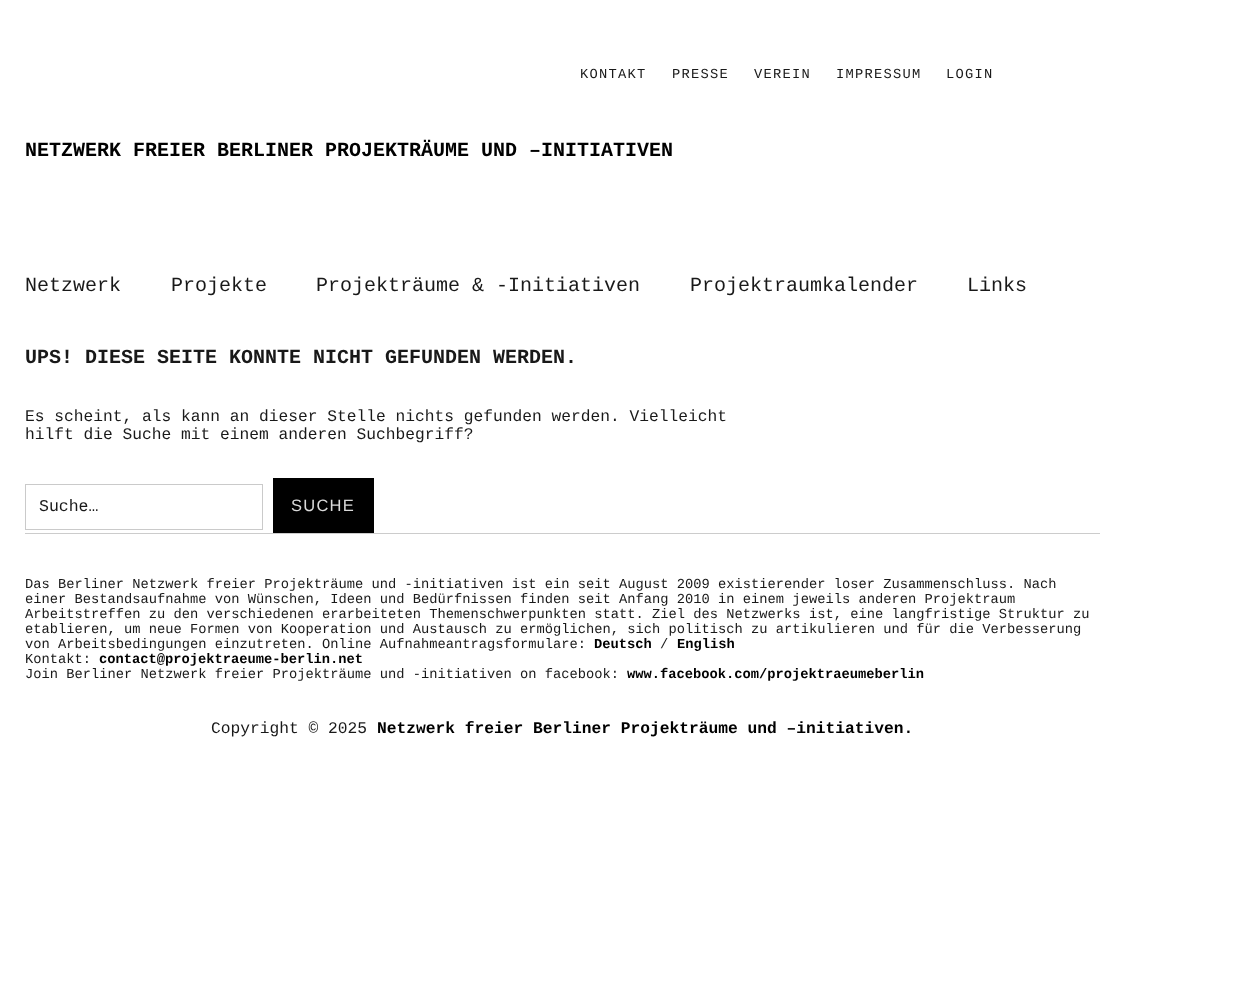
async function draw(canvas) {
  canvas.width = 1241
  canvas.height = 1005
  const ctx = canvas.getContext('2d')
  ctx.miterLimit = 4
  ctx.fontKerning = 'normal'

  ctx.fillStyle = '#fff'
  ctx.fillRect(0, 0, 1241, 1005)
  ctx.letterSpacing = '1.25px'
  ctx.font = '13.75px Liberation Mono'
  ctx.fillStyle = '#191919'
  ctx.fillText('KONTAKT', 580, 78)
  ctx.fillText('PRESSE', 672, 78)
  ctx.fillText('VEREIN', 754, 78)
  ctx.fillText('IMPRESSUM', 836, 78)
  ctx.fillText('LOGIN', 946, 78)
  ctx.letterSpacing = '0px'
  ctx.font = 'bold 20px Liberation Mono'
  ctx.fillStyle = '#000'
  ctx.fillText('NETZWERK FREIER BERLINER PROJEKTRÄUME UND –INITIATIVEN', 25, 156)
  ctx.font = '20px Liberation Mono'
  ctx.fillStyle = '#191919'
  ctx.fillText('Netzwerk', 25, 291)
  ctx.fillText('Projekte', 171, 291)
  ctx.fillText('Projekträume & -Initiativen', 316, 291)
  ctx.fillText('Projektraumkalender', 690, 291)
  ctx.fillText('Links', 967, 291)
  ctx.font = 'bold 20px Liberation Mono'
  ctx.fillText('UPS! DIESE SEITE KONNTE NICHT GEFUNDEN WERDEN.', 25, 363)
  ctx.font = '16.25px Liberation Mono'
  ctx.fillText('Es scheint, als kann an dieser Stelle nichts gefunden werden. Vielleicht', 25, 421)
  ctx.fillText('hilft die Suche mit einem anderen Suchbegriff?', 25, 439)
  ctx.strokeStyle = '#cacaca'
  ctx.strokeRect(25.5, 484.5, 237, 45)
  ctx.font = '16.5px Liberation Mono'
  ctx.fillText('Suche…', 39, 511)
  ctx.fillStyle = '#000'
  ctx.fillRect(273, 478, 101, 55)
  ctx.letterSpacing = '1.25px'
  ctx.font = '16.5px Liberation Sans'
  ctx.fillStyle = '#d9d9d9'
  ctx.fillText('SUCHE', 291, 511)
  ctx.fillStyle = '#ccc'
  ctx.fillRect(25, 533, 1075, 1)
  ctx.letterSpacing = '0px'
  ctx.font = '13.75px Liberation Mono'
  ctx.fillStyle = '#191919'
  ctx.fillText('Das Berliner Netzwerk freier Projekträume und -initiativen ist ein seit August 2009 existierender loser Zusammenschluss. Nach', 25, 588)
  ctx.fillText('einer Bestandsaufnahme von Wünschen, Ideen und Bedürfnissen finden seit Anfang 2010 in einem jeweils anderen Projektraum', 25, 603)
  ctx.fillText('Arbeitstreffen zu den verschiedenen erarbeiteten Themenschwerpunkten statt. Ziel des Netzwerks ist, eine langfristige Struktur zu', 25, 618)
  ctx.fillText('etablieren, um neue Formen von Kooperation und Austausch zu ermöglichen, sich politisch zu artikulieren und für die Verbesserung', 25, 633)
  ctx.fillText('von Arbeitsbedingungen einzutreten. Online Aufnahmeantragsformulare:', 25, 648)
  ctx.font = 'bold 13.75px Liberation Mono'
  ctx.fillStyle = '#000'
  ctx.fillText('Deutsch', 594, 648)
  ctx.font = '13.75px Liberation Mono'
  ctx.fillStyle = '#191919'
  ctx.fillText('/', 660, 648)
  ctx.font = 'bold 13.75px Liberation Mono'
  ctx.fillStyle = '#000'
  ctx.fillText('English', 677, 648)
  ctx.font = '13.75px Liberation Mono'
  ctx.fillStyle = '#191919'
  ctx.fillText('Kontakt:', 25, 663)
  ctx.font = 'bold 13.75px Liberation Mono'
  ctx.fillStyle = '#000'
  ctx.fillText('contact@projektraeume-berlin.net', 99, 663)
  ctx.font = '13.75px Liberation Mono'
  ctx.fillStyle = '#191919'
  ctx.fillText('Join Berliner Netzwerk freier Projekträume und -initiativen on facebook:', 25, 678)
  ctx.font = 'bold 13.75px Liberation Mono'
  ctx.fillStyle = '#000'
  ctx.fillText('www.facebook.com/projektraeumeberlin', 627, 678)
  ctx.font = '16.25px Liberation Mono'
  ctx.fillStyle = '#191919'
  ctx.fillText('Copyright © 2025', 211, 733)
  ctx.font = 'bold 16.25px Liberation Mono'
  ctx.fillStyle = '#000'
  ctx.fillText('Netzwerk freier Berliner Projekträume und –initiativen.', 377, 733)
}

draw(document.querySelector('canvas'))
